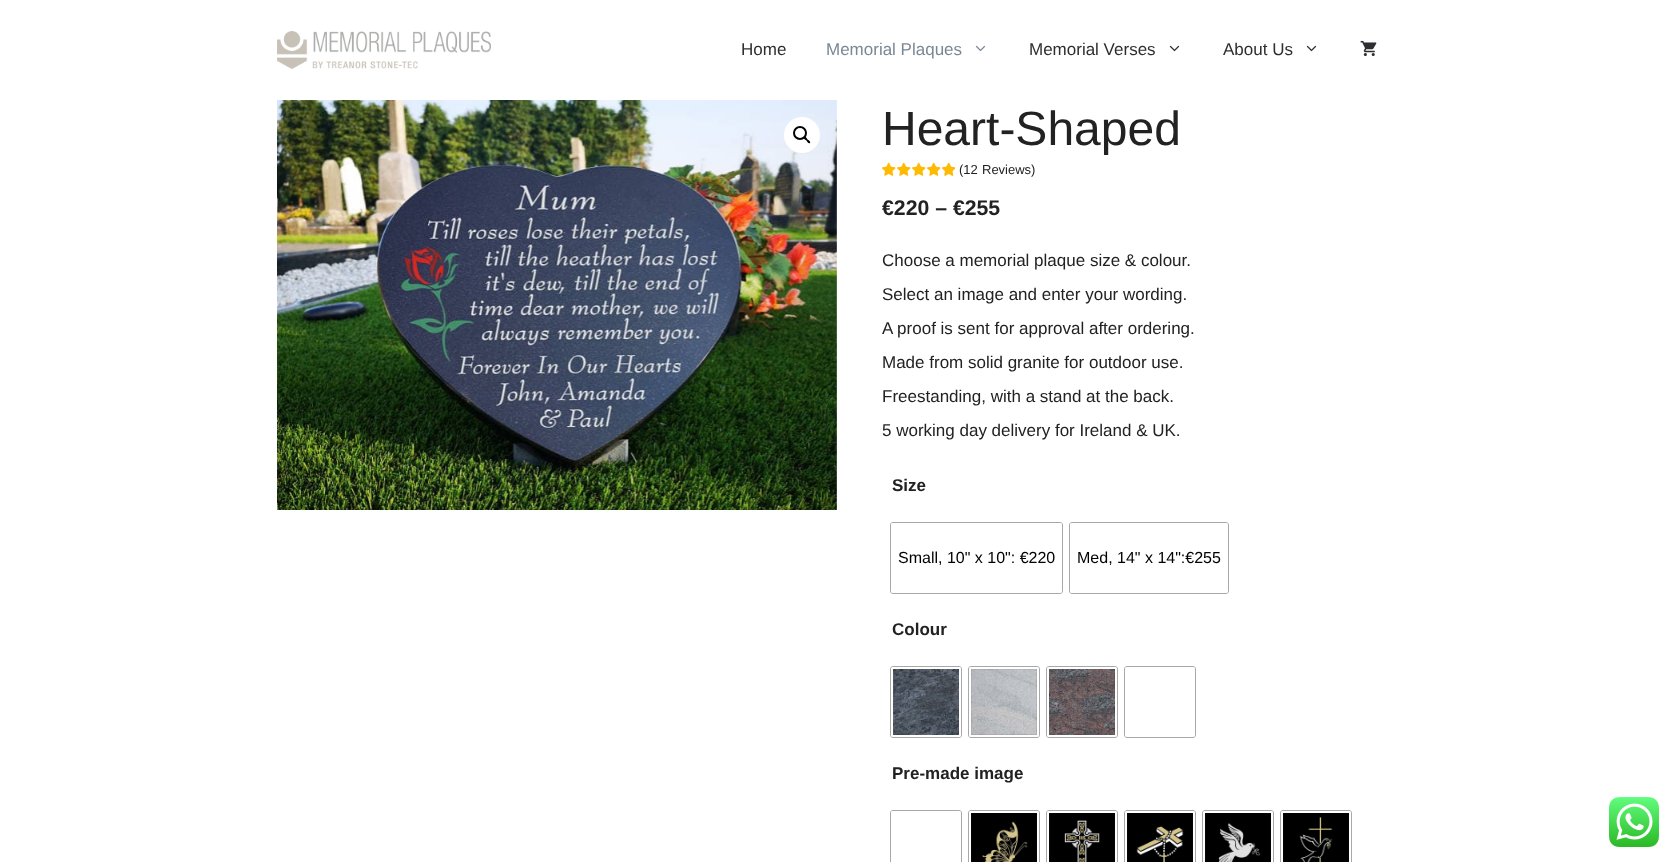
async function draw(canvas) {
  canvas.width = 1674
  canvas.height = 862
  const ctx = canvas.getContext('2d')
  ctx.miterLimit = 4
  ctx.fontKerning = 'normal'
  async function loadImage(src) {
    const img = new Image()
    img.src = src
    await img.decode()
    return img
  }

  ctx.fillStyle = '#fff'
  ctx.fillRect(0, 0, 1674, 862)
  ctx.drawImage(await loadImage('image0.png'), 277, 31, 214, 38)
  ctx.font = '17px Liberation Sans'
  ctx.fillStyle = '#2c2e30'
  ctx.fillText('Home', 741, 55)
  ctx.fillStyle = '#7a8896'
  ctx.fillText('Memorial Plaques', 826, 55)
  ctx.drawImage(await loadImage('image1.png'), 975, 45, 11, 7)
  ctx.fillStyle = '#2c2e30'
  ctx.fillText('Memorial Verses', 1029, 55)
  ctx.drawImage(await loadImage('image2.png'), 1169, 45, 11, 7)
  ctx.fillText('About Us', 1223, 55)
  ctx.drawImage(await loadImage('image2.png'), 1306, 45, 11, 7)
  ctx.drawImage(await loadImage('image3.png'), 1360, 40, 17, 16)
  ctx.drawImage(await loadImage('image4.png'), 277, 100, 560, 410)
  ctx.fillStyle = '#fff'
  ctx.beginPath()
  ctx.arc(802, 135, 18, 0, 2 * Math.PI)
  ctx.fill()
  ctx.beginPath()
  ctx.arc(800, 133, 6, 0, 2 * Math.PI)
  ctx.strokeStyle = '#000'
  ctx.lineWidth = 2
  ctx.stroke()
  ctx.fillStyle = '#000'
  ctx.beginPath()
  ctx.moveTo(804, 137)
  ctx.bezierCurveTo(805.5, 136, 807, 138.5, 807.5, 139.5)
  ctx.bezierCurveTo(808.5, 140, 811, 141.5, 810, 143)
  ctx.bezierCurveTo(808.5, 144, 807, 141.5, 806.5, 140.5)
  ctx.bezierCurveTo(805.5, 140, 803, 138.5, 804, 137)
  ctx.closePath()
  ctx.fill()
  ctx.font = '48px Liberation Sans'
  ctx.fillStyle = '#222'
  ctx.fillText('Heart-Shaped', 882, 145)
  ctx.drawImage(await loadImage('image5.png'), 882, 162, 14, 14)
  ctx.drawImage(await loadImage('image5.png'), 897, 162, 14, 14)
  ctx.drawImage(await loadImage('image5.png'), 912, 162, 14, 14)
  ctx.drawImage(await loadImage('image5.png'), 927, 162, 14, 14)
  ctx.drawImage(await loadImage('image6.png'), 942, 163, 14, 13)
  ctx.drawImage(await loadImage('image7.png'), 942, 163, 13, 13)
  ctx.font = '13px Liberation Sans'
  ctx.fillText('(12', 959, 174)
  ctx.fillText('Reviews)', 982, 174)
  ctx.font = 'bold 21.25px Liberation Sans'
  ctx.fillText('€220 – €255', 882, 215)
  ctx.font = '17px Liberation Sans'
  ctx.fillText('Choose a memorial plaque size & colour.', 882, 266)
  ctx.fillText('Select an image and enter your wording.', 882, 300)
  ctx.fillText('A proof is sent for approval after ordering.', 882, 334)
  ctx.fillText('Made from solid granite for outdoor use.', 882, 368)
  ctx.fillText('Freestanding, with a stand at the back.', 882, 402)
  ctx.fillText('5 working day delivery for Ireland & UK.', 882, 436)
  ctx.font = 'bold 17px Liberation Sans'
  ctx.fillText('Size', 892, 491)
  ctx.beginPath()
  ctx.roundRect(890.5, 522.5, 172, 71, 2.5)
  ctx.strokeStyle = '#a8a8a8'
  ctx.lineWidth = 1
  ctx.stroke()
  ctx.fillStyle = '#fff'
  ctx.beginPath()
  ctx.roundRect(891, 523, 171, 70, 2)
  ctx.fill()
  ctx.font = '16px Liberation Sans'
  ctx.fillStyle = '#000'
  ctx.fillText('Small, 10" x 10": €220', 898, 563)
  ctx.beginPath()
  ctx.roundRect(1069.5, 522.5, 159, 71, 2.5)
  ctx.stroke()
  ctx.fillStyle = '#fff'
  ctx.beginPath()
  ctx.roundRect(1070, 523, 158, 70, 2)
  ctx.fill()
  ctx.fillStyle = '#000'
  ctx.fillText('Med, 14" x 14":€255', 1077, 563)
  ctx.font = 'bold 17px Liberation Sans'
  ctx.fillStyle = '#222'
  ctx.fillText('Colour', 892, 635)
  ctx.beginPath()
  ctx.roundRect(890.5, 666.5, 71, 71, 2.5)
  ctx.stroke()
  ctx.fillStyle = '#fff'
  ctx.beginPath()
  ctx.roundRect(891, 667, 70, 70, 2)
  ctx.fill()
  ctx.drawImage(await loadImage('image8.png'), 893, 669, 66, 66)
  ctx.beginPath()
  ctx.roundRect(968.5, 666.5, 71, 71, 2.5)
  ctx.stroke()
  ctx.beginPath()
  ctx.roundRect(969, 667, 70, 70, 2)
  ctx.fill()
  ctx.drawImage(await loadImage('image9.png'), 971, 669, 66, 66)
  ctx.beginPath()
  ctx.roundRect(1046.5, 666.5, 71, 71, 2.5)
  ctx.stroke()
  ctx.beginPath()
  ctx.roundRect(1047, 667, 70, 70, 2)
  ctx.fill()
  ctx.drawImage(await loadImage('image10.png'), 1049, 669, 66, 66)
  ctx.beginPath()
  ctx.roundRect(1124.5, 666.5, 71, 71, 2.5)
  ctx.stroke()
  ctx.beginPath()
  ctx.roundRect(1125, 667, 70, 70, 2)
  ctx.fill()
  ctx.fillStyle = '#222'
  ctx.fillText('Pre-made image', 892, 779)
  ctx.beginPath()
  ctx.roundRect(890.5, 810.5, 71, 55, 2.5)
  ctx.stroke()
  ctx.fillStyle = '#fff'
  ctx.beginPath()
  ctx.roundRect(891, 811, 70, 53, 2)
  ctx.fill()
  ctx.beginPath()
  ctx.roundRect(968.5, 810.5, 71, 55, 2.5)
  ctx.stroke()
  ctx.beginPath()
  ctx.roundRect(969, 811, 70, 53, 2)
  ctx.fill()
  ctx.drawImage(await loadImage('image11.png'), 971, 813, 66, 49)
  ctx.beginPath()
  ctx.roundRect(1046.5, 810.5, 71, 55, 2.5)
  ctx.stroke()
  ctx.beginPath()
  ctx.roundRect(1047, 811, 70, 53, 2)
  ctx.fill()
  ctx.drawImage(await loadImage('image12.png'), 1049, 813, 66, 49)
  ctx.beginPath()
  ctx.roundRect(1124.5, 810.5, 71, 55, 2.5)
  ctx.stroke()
  ctx.beginPath()
  ctx.roundRect(1125, 811, 70, 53, 2)
  ctx.fill()
  ctx.drawImage(await loadImage('image13.png'), 1127, 813, 66, 49)
  ctx.beginPath()
  ctx.roundRect(1202.5, 810.5, 71, 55, 2.5)
  ctx.stroke()
  ctx.beginPath()
  ctx.roundRect(1203, 811, 70, 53, 2)
  ctx.fill()
  ctx.drawImage(await loadImage('image14.png'), 1205, 813, 66, 49)
  ctx.beginPath()
  ctx.roundRect(1280.5, 810.5, 71, 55, 2.5)
  ctx.stroke()
  ctx.beginPath()
  ctx.roundRect(1281, 811, 70, 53, 2)
  ctx.fill()
  ctx.drawImage(await loadImage('image15.png'), 1283, 813, 66, 49)
  ctx.drawImage(await loadImage('image16.png'), 1609, 797, 50, 50)
}

draw(document.querySelector('canvas'))
